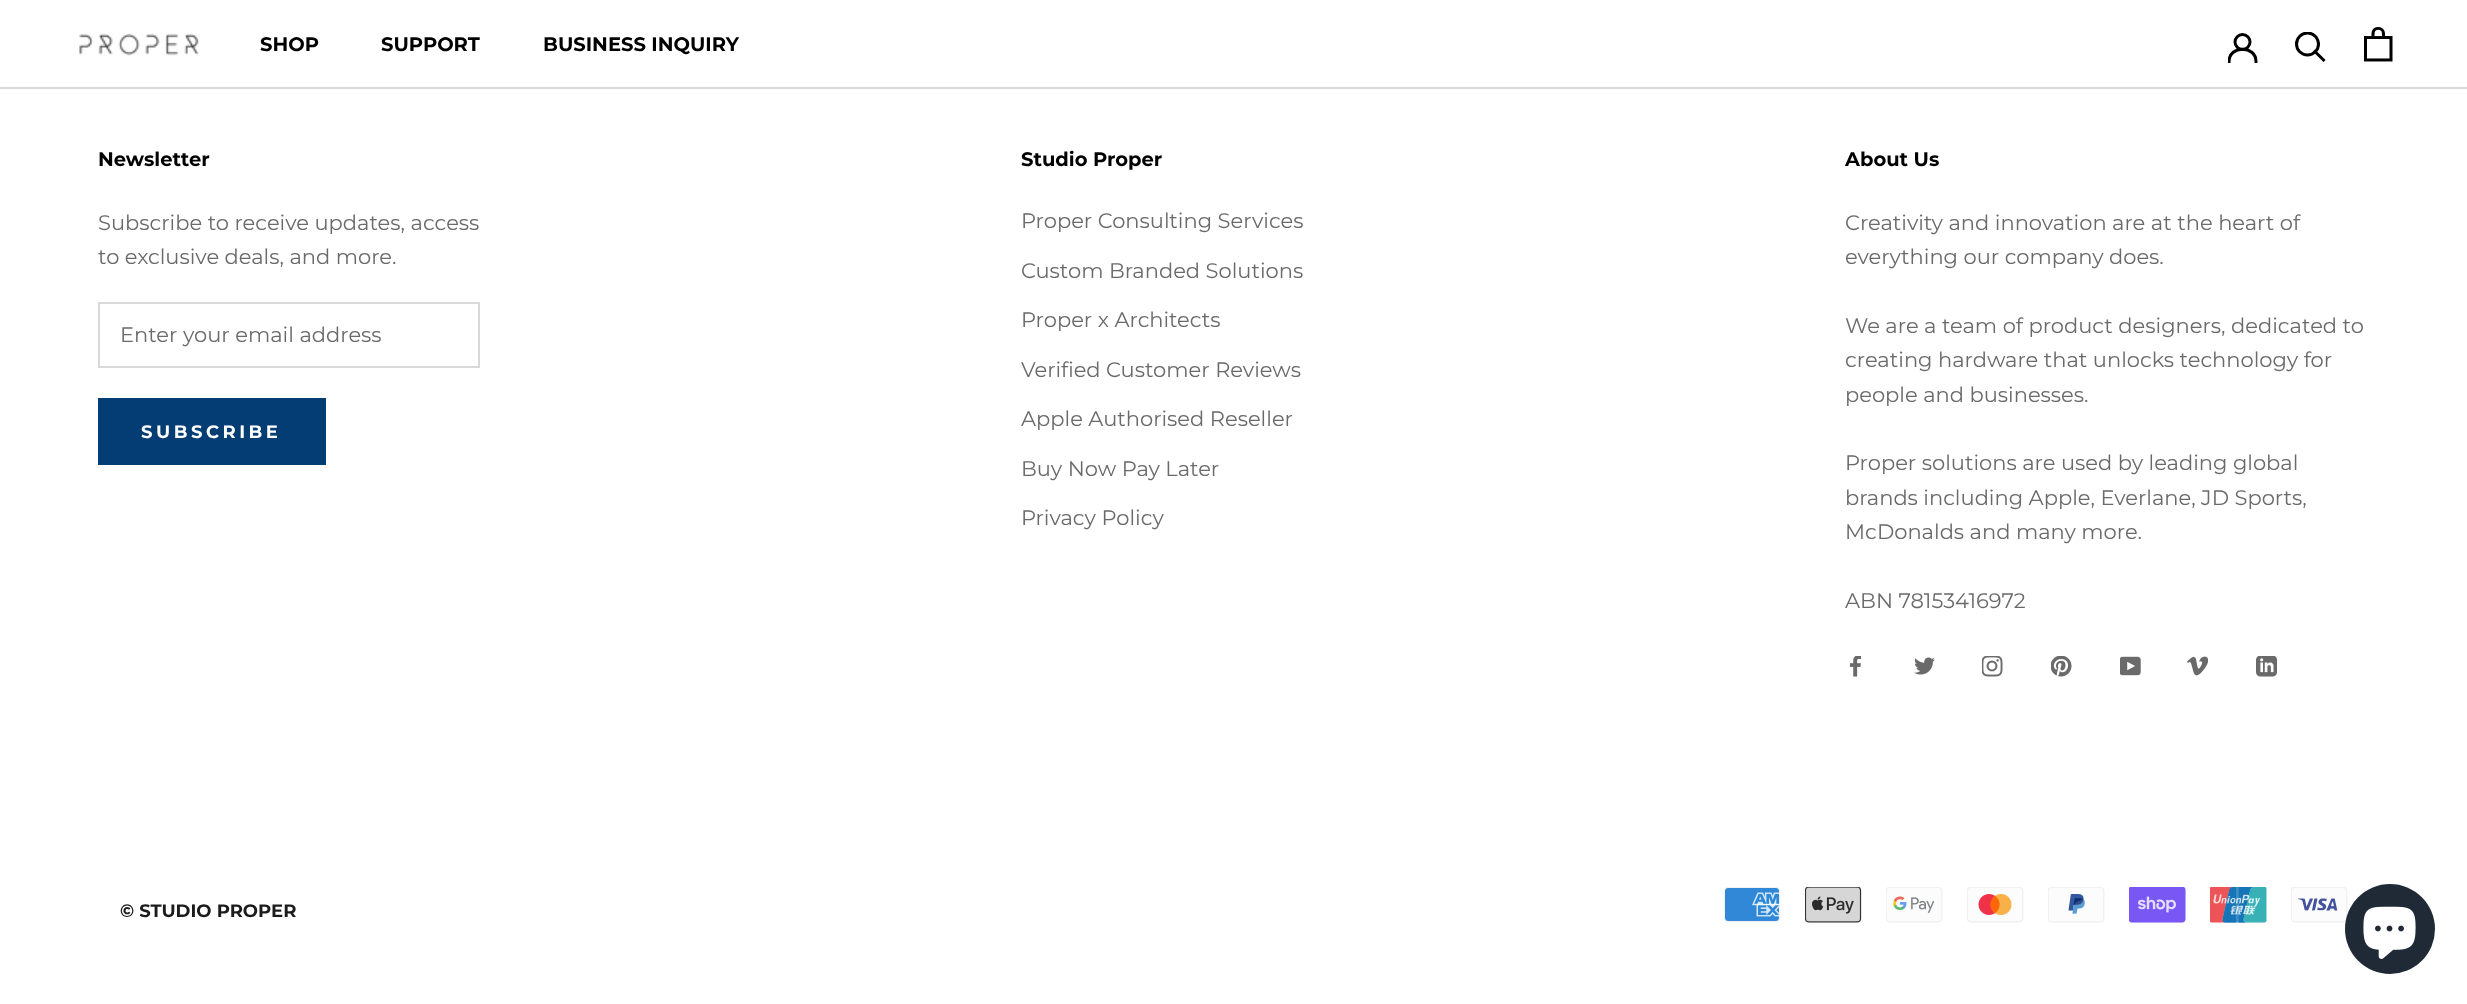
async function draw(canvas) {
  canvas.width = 2467
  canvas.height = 1004
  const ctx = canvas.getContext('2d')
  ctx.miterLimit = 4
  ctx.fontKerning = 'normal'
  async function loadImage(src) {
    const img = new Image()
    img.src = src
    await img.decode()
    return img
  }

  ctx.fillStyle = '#fff'
  ctx.fillRect(0, 0, 2467, 1004)
  ctx.fillStyle = '#d9d9d9'
  ctx.fillRect(0, 87, 2467, 2)
  ctx.drawImage(await loadImage('image0.png'), 79, 33, 120, 23)
  ctx.font = 'bold 19.5px Montserrat'
  ctx.fillStyle = '#000'
  ctx.fillText('SHOP', 260, 51)
  ctx.fillText('SUPPORT', 381, 51)
  ctx.fillText('BUSINESS INQUIRY', 543, 51)
  ctx.save()
  ctx.beginPath()
  ctx.rect(2228, 33, 30, 30)
  ctx.clip()
  ctx.beginPath()
  ctx.moveTo(2229, 61.5)
  ctx.bezierCurveTo(2229, 45, 2256, 45, 2256, 61.5)
  ctx.strokeStyle = '#000'
  ctx.lineWidth = 3
  ctx.lineCap = 'square'
  ctx.stroke()
  ctx.restore()
  ctx.beginPath()
  ctx.arc(2242.5, 42, 7.5, 0, 2 * Math.PI)
  ctx.strokeStyle = '#000'
  ctx.lineWidth = 3
  ctx.stroke()
  ctx.beginPath()
  ctx.moveTo(2323.5, 60)
  ctx.lineTo(2315, 51.5)
  ctx.lineCap = 'square'
  ctx.stroke()
  ctx.save()
  ctx.beginPath()
  ctx.rect(2295, 32, 32, 31)
  ctx.clip()
  ctx.beginPath()
  ctx.arc(2307.5, 44, 11, 0, 2 * Math.PI)
  ctx.stroke()
  ctx.restore()
  ctx.drawImage(await loadImage('image1.png'), 2364, 27, 29, 35)
  ctx.fillText('Newsletter', 98, 166)
  ctx.font = '21px Montserrat'
  ctx.fillStyle = '#6a6a6a'
  ctx.fillText('Subscribe to receive updates, access', 98, 230)
  ctx.fillText('to exclusive deals, and more.', 98, 264)
  ctx.strokeStyle = '#d9d9d9'
  ctx.lineWidth = 2
  ctx.strokeRect(99, 303, 380, 64)
  ctx.fillText('Enter your email address', 120, 342)
  ctx.strokeStyle = '#043c74'
  ctx.strokeRect(99, 399, 226, 65)
  ctx.fillStyle = '#043c74'
  ctx.fillRect(100, 400, 224, 63)
  ctx.letterSpacing = '3.5px'
  ctx.font = 'bold 18px Montserrat'
  ctx.fillStyle = '#fff'
  ctx.fillText('SUBSCRIBE', 141, 438)
  ctx.letterSpacing = '0px'
  ctx.font = 'bold 19.5px Montserrat'
  ctx.fillStyle = '#000'
  ctx.fillText('Studio Proper', 1021, 166)
  ctx.font = '21px Montserrat'
  ctx.fillStyle = '#6a6a6a'
  ctx.fillText('Proper Consulting Services', 1021, 228)
  ctx.fillText('Custom Branded Solutions', 1021, 278)
  ctx.fillText('Proper x Architects', 1021, 327)
  ctx.fillText('Verified Customer Reviews', 1021, 377)
  ctx.fillText('Apple Authorised Reseller', 1021, 426)
  ctx.fillText('Buy Now Pay Later', 1021, 476)
  ctx.fillText('Privacy Policy', 1021, 525)
  ctx.font = 'bold 19.5px Montserrat'
  ctx.fillStyle = '#000'
  ctx.fillText('About Us', 1845, 166)
  ctx.font = '21px Montserrat'
  ctx.fillStyle = '#6a6a6a'
  ctx.fillText('Creativity and innovation are at the heart of', 1845, 230)
  ctx.fillText('everything our company does.', 1845, 264)
  ctx.fillText('We are a team of product designers, dedicated to', 1845, 333)
  ctx.fillText('creating hardware that unlocks technology for', 1845, 367)
  ctx.fillText('people and businesses.', 1845, 402)
  ctx.fillText('Proper solutions are used by leading global', 1845, 470)
  ctx.fillText('brands including Apple, Everlane, JD Sports,', 1845, 505)
  ctx.fillText('McDonalds and many more.', 1845, 539)
  ctx.fillText('ABN 78153416972', 1845, 608)
  ctx.drawImage(await loadImage('image2.png'), 1849, 656, 13, 21)
  ctx.drawImage(await loadImage('image3.png'), 1914, 657, 21, 18)
  ctx.drawImage(await loadImage('image4.png'), 1982, 656, 21, 21)
  ctx.drawImage(await loadImage('image5.png'), 2051, 656, 21, 21)
  ctx.drawImage(await loadImage('image6.png'), 2120, 656, 21, 20)
  ctx.drawImage(await loadImage('image7.png'), 2187, 656, 21, 20)
  ctx.drawImage(await loadImage('image8.png'), 2256, 656, 21, 21)
  ctx.font = 'bold 18px Montserrat'
  ctx.fillStyle = '#1c1b1b'
  ctx.fillText('© STUDIO PROPER', 120, 917)
  ctx.drawImage(await loadImage('image9.png'), 1724, 887, 57, 36)
  ctx.drawImage(await loadImage('image10.png'), 1805, 887, 57, 36)
  ctx.drawImage(await loadImage('image11.png'), 1886, 887, 57, 36)
  ctx.drawImage(await loadImage('image12.png'), 1967, 887, 57, 36)
  ctx.drawImage(await loadImage('image13.png'), 2048, 887, 57, 36)
  ctx.drawImage(await loadImage('image14.png'), 2129, 887, 57, 36)
  ctx.drawImage(await loadImage('image15.png'), 2210, 887, 57, 36)
  ctx.drawImage(await loadImage('image16.png'), 2291, 887, 57, 36)
  ctx.fillStyle = '#202a36'
  ctx.beginPath()
  ctx.arc(2390, 929, 45, 0, 2 * Math.PI)
  ctx.fill()
  ctx.drawImage(await loadImage('image17.png'), 2363, 906, 53, 53)
}

draw(document.querySelector('canvas'))
